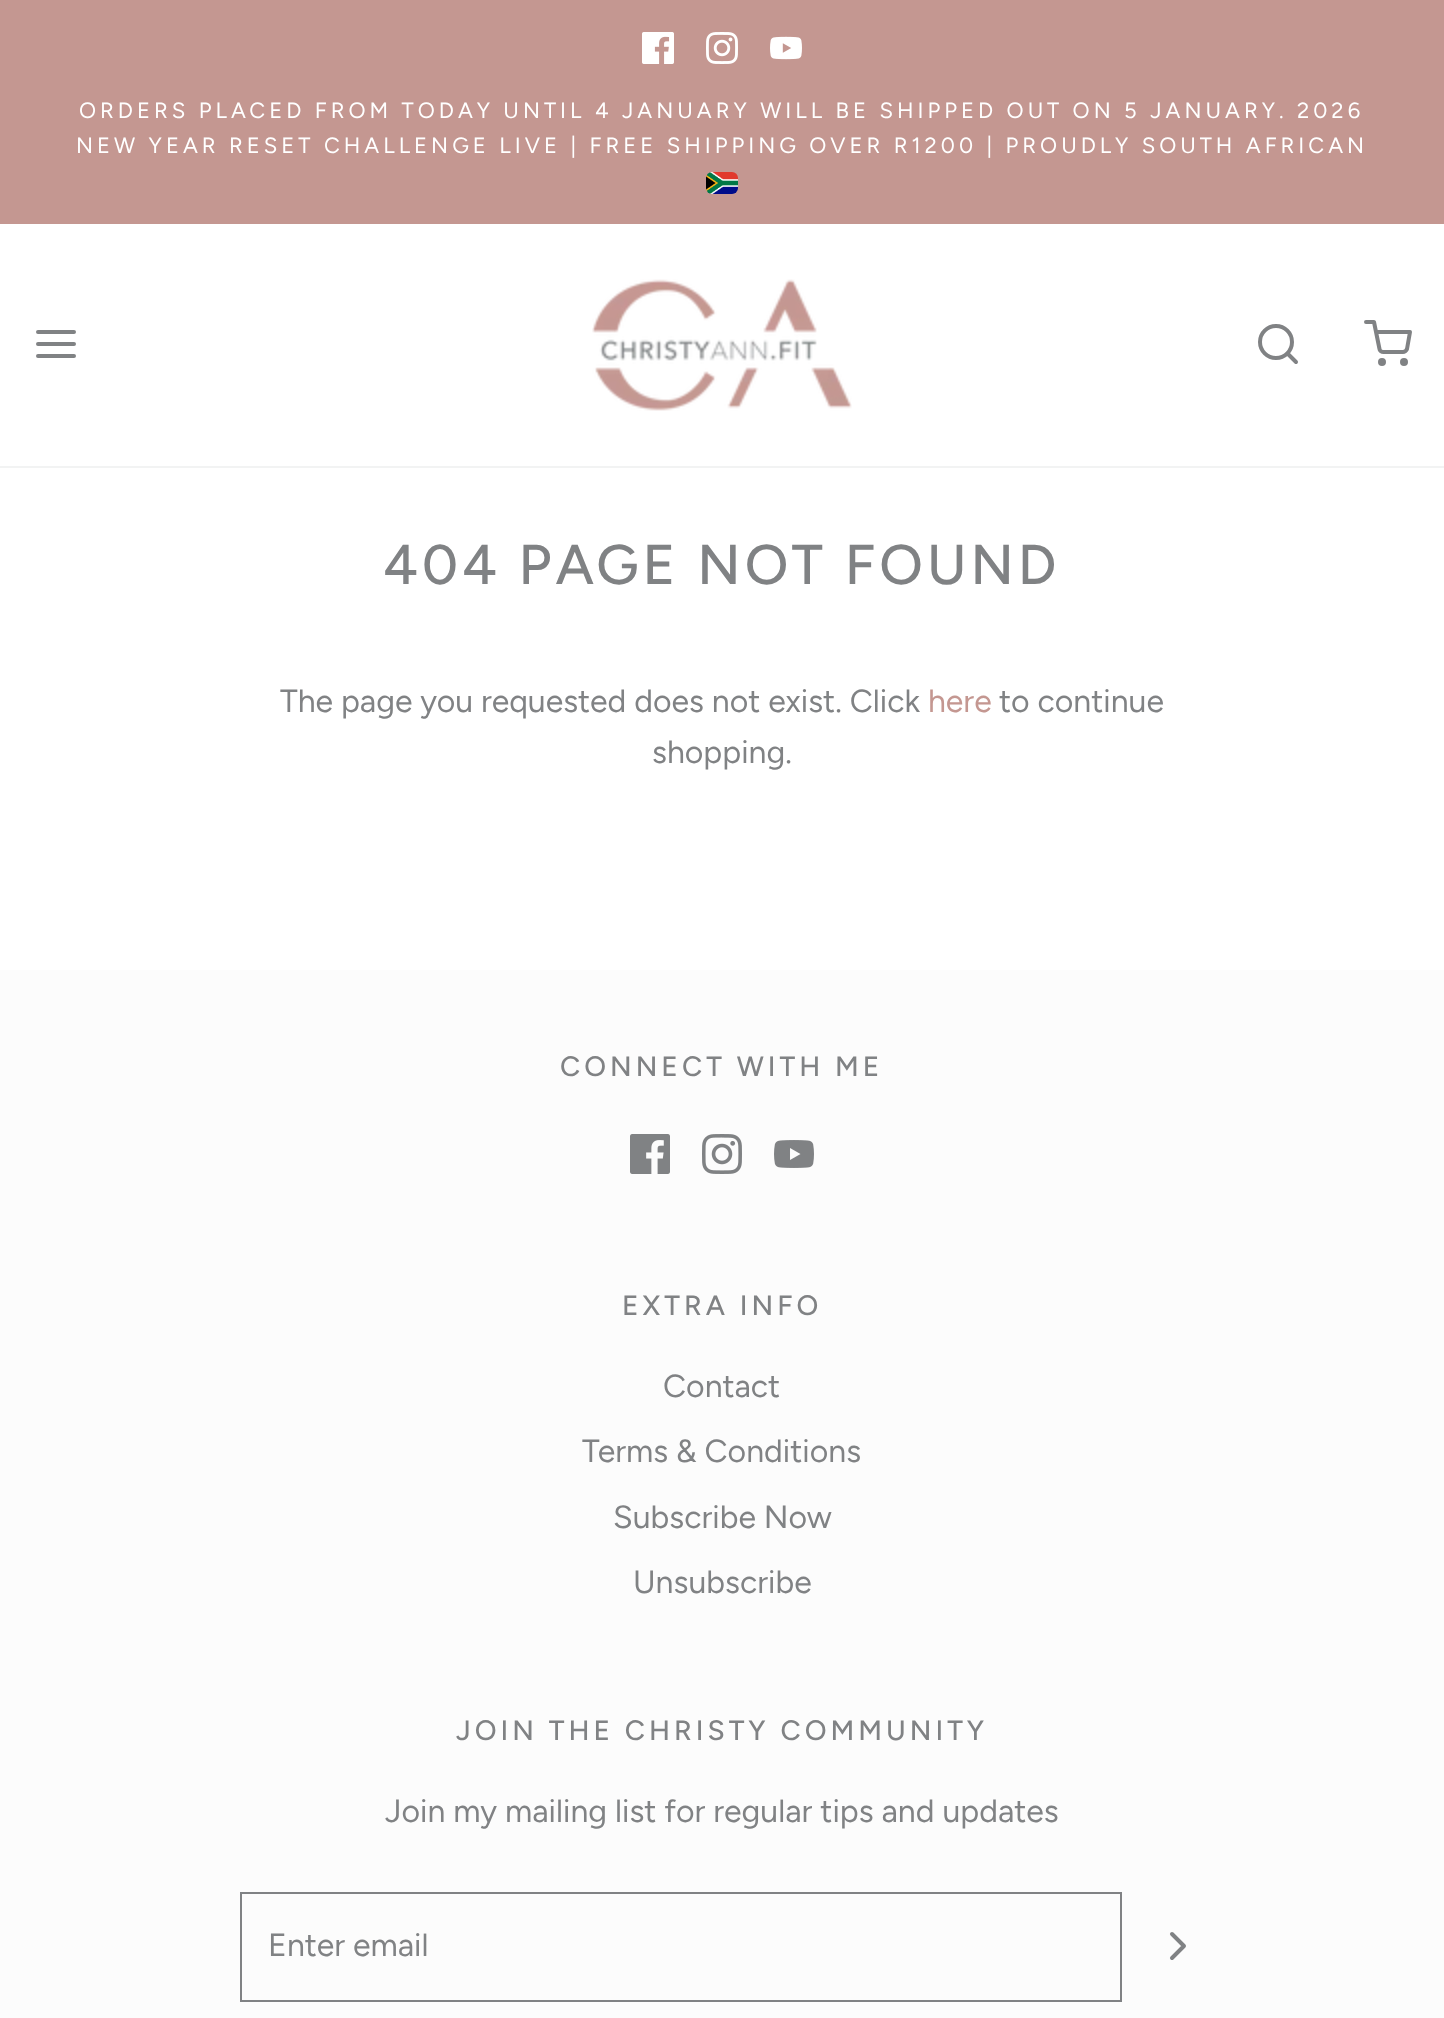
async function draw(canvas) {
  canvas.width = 1444
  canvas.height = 2018
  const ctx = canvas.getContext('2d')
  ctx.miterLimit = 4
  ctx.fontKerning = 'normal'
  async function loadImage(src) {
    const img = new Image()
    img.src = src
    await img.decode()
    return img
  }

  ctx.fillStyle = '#fff'
  ctx.fillRect(0, 0, 1444, 2018)
  ctx.fillStyle = '#c49791'
  ctx.fillRect(0, 0, 1444, 224)
  ctx.drawImage(await loadImage('image0.png'), 642, 32, 32, 32)
  ctx.drawImage(await loadImage('image1.png'), 706, 32, 32, 32)
  ctx.drawImage(await loadImage('image2.png'), 770, 36, 32, 24)
  ctx.letterSpacing = '4px'
  ctx.font = '22px Figtree'
  ctx.fillStyle = '#fff'
  ctx.fillText('ORDERS PLACED FROM TODAY UNTIL 4 JANUARY WILL BE SHIPPED OUT ON 5 JANUARY. 2026', 79, 118)
  ctx.fillText('NEW YEAR RESET CHALLENGE LIVE | FREE SHIPPING OVER R1200 | PROUDLY SOUTH AFRICAN', 76, 153)
  ctx.drawImage(await loadImage('image3.png'), 706, 172, 32, 22)
  ctx.fillStyle = '#f2f3f3'
  ctx.fillRect(0, 466, 1444, 2)
  ctx.beginPath()
  ctx.moveTo(38, 344)
  ctx.lineTo(74, 344)
  ctx.moveTo(38, 332)
  ctx.lineTo(74, 332)
  ctx.moveTo(38, 356)
  ctx.lineTo(74, 356)
  ctx.strokeStyle = '#808284'
  ctx.lineWidth = 4
  ctx.lineCap = 'round'
  ctx.lineJoin = 'round'
  ctx.stroke()
  ctx.drawImage(await loadImage('image4.png'), 592, 279, 260, 132)
  ctx.beginPath()
  ctx.arc(1276, 342, 16, 0, 2 * Math.PI)
  ctx.stroke()
  ctx.beginPath()
  ctx.moveTo(1296, 362)
  ctx.lineTo(1287.5, 353.5)
  ctx.stroke()
  ctx.beginPath()
  ctx.arc(1382, 362, 2, 0, 2 * Math.PI)
  ctx.stroke()
  ctx.beginPath()
  ctx.arc(1404, 362, 2, 0, 2 * Math.PI)
  ctx.stroke()
  ctx.beginPath()
  ctx.moveTo(1366, 322)
  ctx.lineTo(1374, 322)
  ctx.lineTo(1379.5, 349)
  ctx.bezierCurveTo(1379.5, 350.5, 1381.5, 352, 1383.5, 352)
  ctx.lineTo(1403, 352)
  ctx.bezierCurveTo(1404.5, 352, 1406.5, 350.5, 1407, 349)
  ctx.lineTo(1410, 332)
  ctx.lineTo(1376, 332)
  ctx.stroke()
  ctx.font = '500 56px Figtree'
  ctx.fillStyle = '#808284'
  ctx.fillText('404 PAGE NOT FOUND', 383, 584)
  ctx.letterSpacing = '0px'
  ctx.font = '32px Figtree'
  ctx.fillText('The page you requested does not exist. Click', 280, 712)
  ctx.fillStyle = '#c49791'
  ctx.fillText('here', 928, 712)
  ctx.fillStyle = '#808284'
  ctx.fillText('to continue', 999, 712)
  ctx.fillText('shopping.', 652, 763)
  ctx.fillStyle = '#fcfcfc'
  ctx.fillRect(0, 970, 1444, 1048)
  ctx.letterSpacing = '4px'
  ctx.font = '500 28px Figtree'
  ctx.fillStyle = '#808284'
  ctx.fillText('CONNECT WITH ME', 560, 1076)
  ctx.drawImage(await loadImage('image5.png'), 630, 1134, 40, 40)
  ctx.drawImage(await loadImage('image6.png'), 702, 1134, 40, 40)
  ctx.drawImage(await loadImage('image7.png'), 774, 1140, 40, 28)
  ctx.fillText('EXTRA INFO', 622, 1315)
  ctx.letterSpacing = '0px'
  ctx.font = '32px Figtree'
  ctx.fillText('Contact', 663, 1397)
  ctx.fillText('Terms & Conditions', 582, 1462)
  ctx.fillText('Subscribe Now', 613, 1528)
  ctx.fillText('Unsubscribe', 633, 1593)
  ctx.letterSpacing = '4px'
  ctx.font = '500 28px Figtree'
  ctx.fillText('JOIN THE CHRISTY COMMUNITY', 456, 1740)
  ctx.letterSpacing = '0px'
  ctx.font = '32px Figtree'
  ctx.fillText('Join my mailing list for regular tips and updates', 385, 1822)
  ctx.lineWidth = 2
  ctx.lineJoin = 'miter'
  ctx.strokeRect(241, 1893, 880, 108)
  ctx.fillText('Enter email', 268, 1956)
  ctx.beginPath()
  ctx.moveTo(1172, 1958)
  ctx.lineTo(1184, 1946)
  ctx.lineTo(1172, 1934)
  ctx.lineWidth = 4
  ctx.lineJoin = 'round'
  ctx.stroke()
}

draw(document.querySelector('canvas'))
